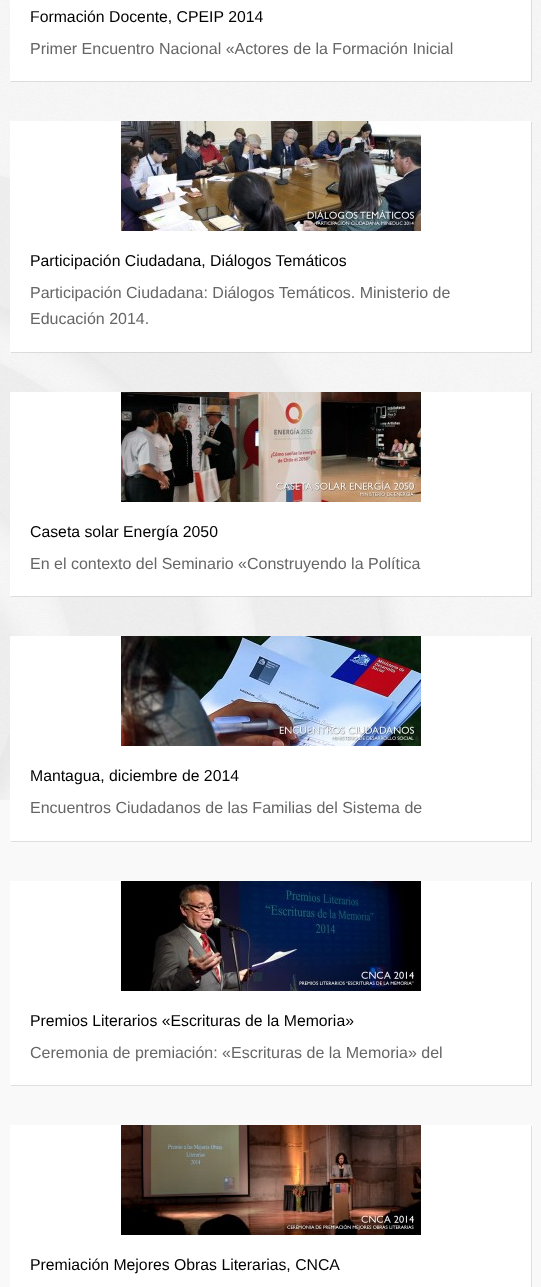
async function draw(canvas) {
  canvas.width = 541
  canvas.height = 1287
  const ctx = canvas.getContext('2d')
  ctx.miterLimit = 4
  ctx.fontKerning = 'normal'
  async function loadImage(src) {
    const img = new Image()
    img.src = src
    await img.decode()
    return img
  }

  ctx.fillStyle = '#f9f9f9'
  ctx.fillRect(0, 0, 541, 1287)
  ctx.drawImage(await loadImage('image0.png'), 0, 0, 541, 800)
  ctx.fillStyle = '#0000001a'
  ctx.filter = 'blur(0.5px)'
  ctx.beginPath()
  ctx.rect(11, -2, 521, 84)
  ctx.fill()
  ctx.filter = 'none'
  ctx.fillStyle = '#fff'
  ctx.fillRect(10, 0, 521, 81)
  ctx.font = '15.8px Liberation Sans'
  ctx.fillStyle = '#000'
  ctx.fillText('Formación Docente, CPEIP 2014', 30, 22)
  ctx.font = '16px Liberation Sans'
  ctx.fillStyle = '#666'
  ctx.fillText('Primer Encuentro Nacional «Actores de la Formación Inicial', 30, 54)
  ctx.fillStyle = '#0000001a'
  ctx.filter = 'blur(0.5px)'
  ctx.beginPath()
  ctx.rect(11, 122, 521, 231)
  ctx.fill()
  ctx.filter = 'none'
  ctx.fillStyle = '#fff'
  ctx.fillRect(10, 121, 521, 231)
  ctx.drawImage(await loadImage('image1.png'), 121, 121, 300, 110)
  ctx.font = '15.8px Liberation Sans'
  ctx.fillStyle = '#000'
  ctx.fillText('Participación Ciudadana, Diálogos Temáticos', 30, 266)
  ctx.font = '16px Liberation Sans'
  ctx.fillStyle = '#666'
  ctx.fillText('Participación Ciudadana: Diálogos Temáticos. Ministerio de', 30, 298)
  ctx.fillText('Educación 2014.', 30, 324)
  ctx.fillStyle = '#0000001a'
  ctx.filter = 'blur(0.5px)'
  ctx.beginPath()
  ctx.rect(11, 393, 521, 204)
  ctx.fill()
  ctx.filter = 'none'
  ctx.fillStyle = '#fff'
  ctx.fillRect(10, 392, 521, 204)
  ctx.drawImage(await loadImage('image2.png'), 121, 392, 300, 110)
  ctx.font = '15.8px Liberation Sans'
  ctx.fillStyle = '#000'
  ctx.fillText('Caseta solar Energía 2050', 30, 537)
  ctx.font = '16px Liberation Sans'
  ctx.fillStyle = '#666'
  ctx.fillText('En el contexto del Seminario «Construyendo la Política', 30, 569)
  ctx.fillStyle = '#0000001a'
  ctx.filter = 'blur(0.5px)'
  ctx.beginPath()
  ctx.rect(11, 637, 521, 205)
  ctx.fill()
  ctx.filter = 'none'
  ctx.fillStyle = '#fff'
  ctx.fillRect(10, 636, 521, 205)
  ctx.drawImage(await loadImage('image3.png'), 121, 636, 300, 110)
  ctx.font = '15.8px Liberation Sans'
  ctx.fillStyle = '#000'
  ctx.fillText('Mantagua, diciembre de 2014', 30, 781)
  ctx.font = '16px Liberation Sans'
  ctx.fillStyle = '#666'
  ctx.fillText('Encuentros Ciudadanos de las Familias del Sistema de', 30, 813)
  ctx.fillStyle = '#0000001a'
  ctx.filter = 'blur(0.5px)'
  ctx.beginPath()
  ctx.rect(11, 882, 521, 204)
  ctx.fill()
  ctx.filter = 'none'
  ctx.fillStyle = '#fff'
  ctx.fillRect(10, 881, 521, 204)
  ctx.drawImage(await loadImage('image4.png'), 121, 881, 300, 110)
  ctx.font = '15.8px Liberation Sans'
  ctx.fillStyle = '#000'
  ctx.fillText('Premios Literarios «Escrituras de la Memoria»', 30, 1026)
  ctx.font = '16px Liberation Sans'
  ctx.fillStyle = '#666'
  ctx.fillText('Ceremonia de premiación: «Escrituras de la Memoria» del', 30, 1058)
  ctx.fillStyle = '#0000001a'
  ctx.filter = 'blur(0.5px)'
  ctx.beginPath()
  ctx.rect(11, 1126, 521, 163)
  ctx.fill()
  ctx.filter = 'none'
  ctx.fillStyle = '#fff'
  ctx.fillRect(10, 1125, 521, 162)
  ctx.drawImage(await loadImage('image5.png'), 121, 1125, 300, 110)
  ctx.font = '15.8px Liberation Sans'
  ctx.fillStyle = '#000'
  ctx.fillText('Premiación Mejores Obras Literarias, CNCA', 30, 1270)
}

draw(document.querySelector('canvas'))
